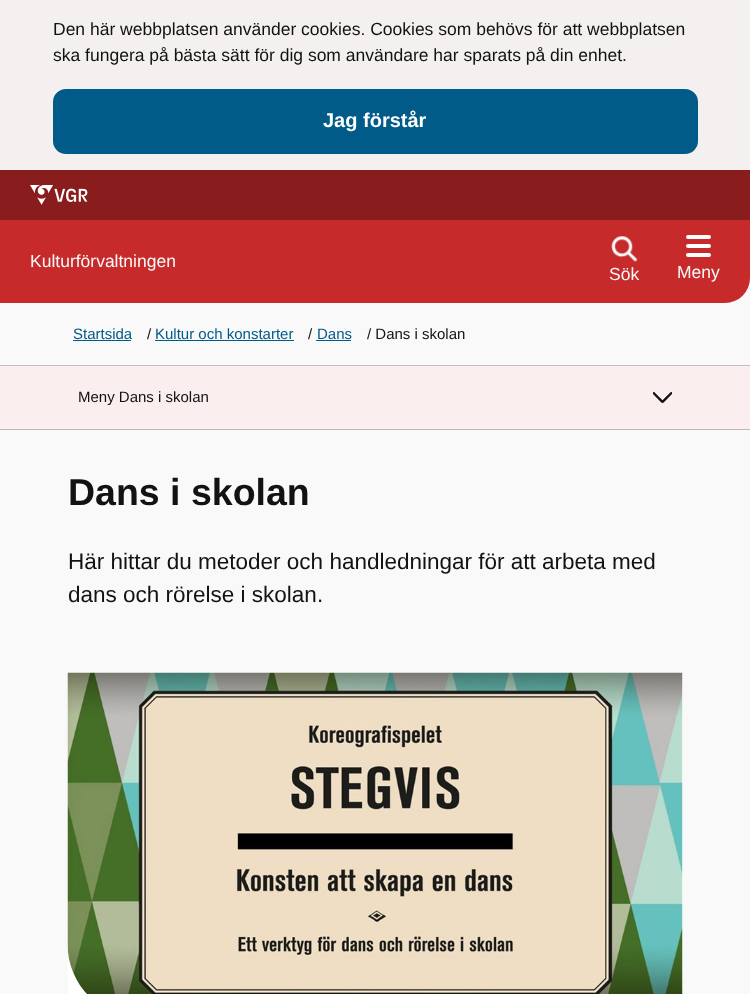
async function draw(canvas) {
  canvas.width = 750
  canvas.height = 994
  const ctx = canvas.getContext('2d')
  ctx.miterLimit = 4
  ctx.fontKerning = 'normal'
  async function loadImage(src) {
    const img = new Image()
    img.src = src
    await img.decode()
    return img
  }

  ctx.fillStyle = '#faf9f9'
  ctx.fillRect(0, 0, 750, 994)
  ctx.fillStyle = '#f3f0ef'
  ctx.fillRect(0, 0, 750, 170)
  ctx.font = '17.5px Liberation Sans'
  ctx.fillStyle = '#121212'
  ctx.fillText('Den här webbplatsen använder cookies. Cookies som behövs för att webbplatsen', 53, 35)
  ctx.fillText('ska fungera på bästa sätt för dig som användare har sparats på din enhet.', 53, 61)
  ctx.fillStyle = '#005b89'
  ctx.beginPath()
  ctx.roundRect(54.5, 90.5, 642, 62, 11.5)
  ctx.fill()
  ctx.strokeStyle = '#005b89'
  ctx.lineWidth = 3
  ctx.stroke()
  ctx.font = 'bold 20px Liberation Sans'
  ctx.fillStyle = '#fff'
  ctx.fillText('Jag förstår', 323, 127)
  ctx.fillStyle = '#891d1d'
  ctx.fillRect(0, 170, 750, 50)
  ctx.drawImage(await loadImage('image0.png'), 30, 185, 58, 20)
  ctx.fillStyle = '#c72a2a'
  ctx.beginPath()
  ctx.roundRect(0, 220, 750, 83, [0, 0, 25, 0])
  ctx.fill()
  ctx.font = '17.5px Liberation Sans'
  ctx.fillStyle = '#f9f9f9'
  ctx.fillText('Kulturförvaltningen', 30, 267)
  ctx.drawImage(await loadImage('image1.png'), 611, 236, 27, 26)
  ctx.fillText('Sök', 609, 280)
  ctx.fillStyle = '#fff'
  ctx.beginPath()
  ctx.roundRect(686, 235, 25, 4, 2)
  ctx.fill()
  ctx.beginPath()
  ctx.roundRect(686, 244, 25, 4, 2)
  ctx.fill()
  ctx.beginPath()
  ctx.roundRect(686, 253, 25, 4, 2)
  ctx.fill()
  ctx.fillStyle = '#f9f9f9'
  ctx.fillText('Meny', 677, 278)
  ctx.font = '15px Liberation Sans'
  ctx.fillStyle = '#005b89'
  ctx.fillText('Startsida', 73, 339)
  ctx.fillRect(73, 340, 58, 1)
  ctx.fillStyle = '#121212'
  ctx.fillText('/', 147, 339)
  ctx.fillStyle = '#005b89'
  ctx.fillText('Kultur och konstarter', 155, 339)
  ctx.fillRect(155, 340, 139, 1)
  ctx.fillStyle = '#121212'
  ctx.fillText('/', 308, 339)
  ctx.fillStyle = '#005b89'
  ctx.fillText('Dans', 317, 339)
  ctx.fillRect(316, 340, 35, 1)
  ctx.fillStyle = '#121212'
  ctx.fillText('/ Dans i skolan', 367, 339)
  ctx.fillStyle = '#c0bfbf'
  ctx.fillRect(0, 365, 750, 1)
  ctx.fillStyle = '#faeeee'
  ctx.fillRect(0, 366, 750, 63)
  ctx.fillStyle = '#121212'
  ctx.fillText('Meny Dans i skolan', 78, 402)
  ctx.drawImage(await loadImage('image2.png'), 652, 392, 21, 11)
  ctx.fillStyle = '#c0b7b7'
  ctx.fillRect(0, 429, 750, 1)
  ctx.font = 'bold 37.5px Liberation Sans'
  ctx.fillStyle = '#121212'
  ctx.fillText('Dans i skolan', 68, 505)
  ctx.font = '22.5px Liberation Sans'
  ctx.fillText('Här hittar du metoder och handledningar för att arbeta med', 68, 569)
  ctx.fillText('dans och rörelse i skolan.', 68, 602)
  ctx.fillStyle = '#fff'
  ctx.fillRect(68, 673, 615, 321)
  ctx.drawImage(await loadImage('image3.png'), 67, 672, 616, 322)
}

draw(document.querySelector('canvas'))
